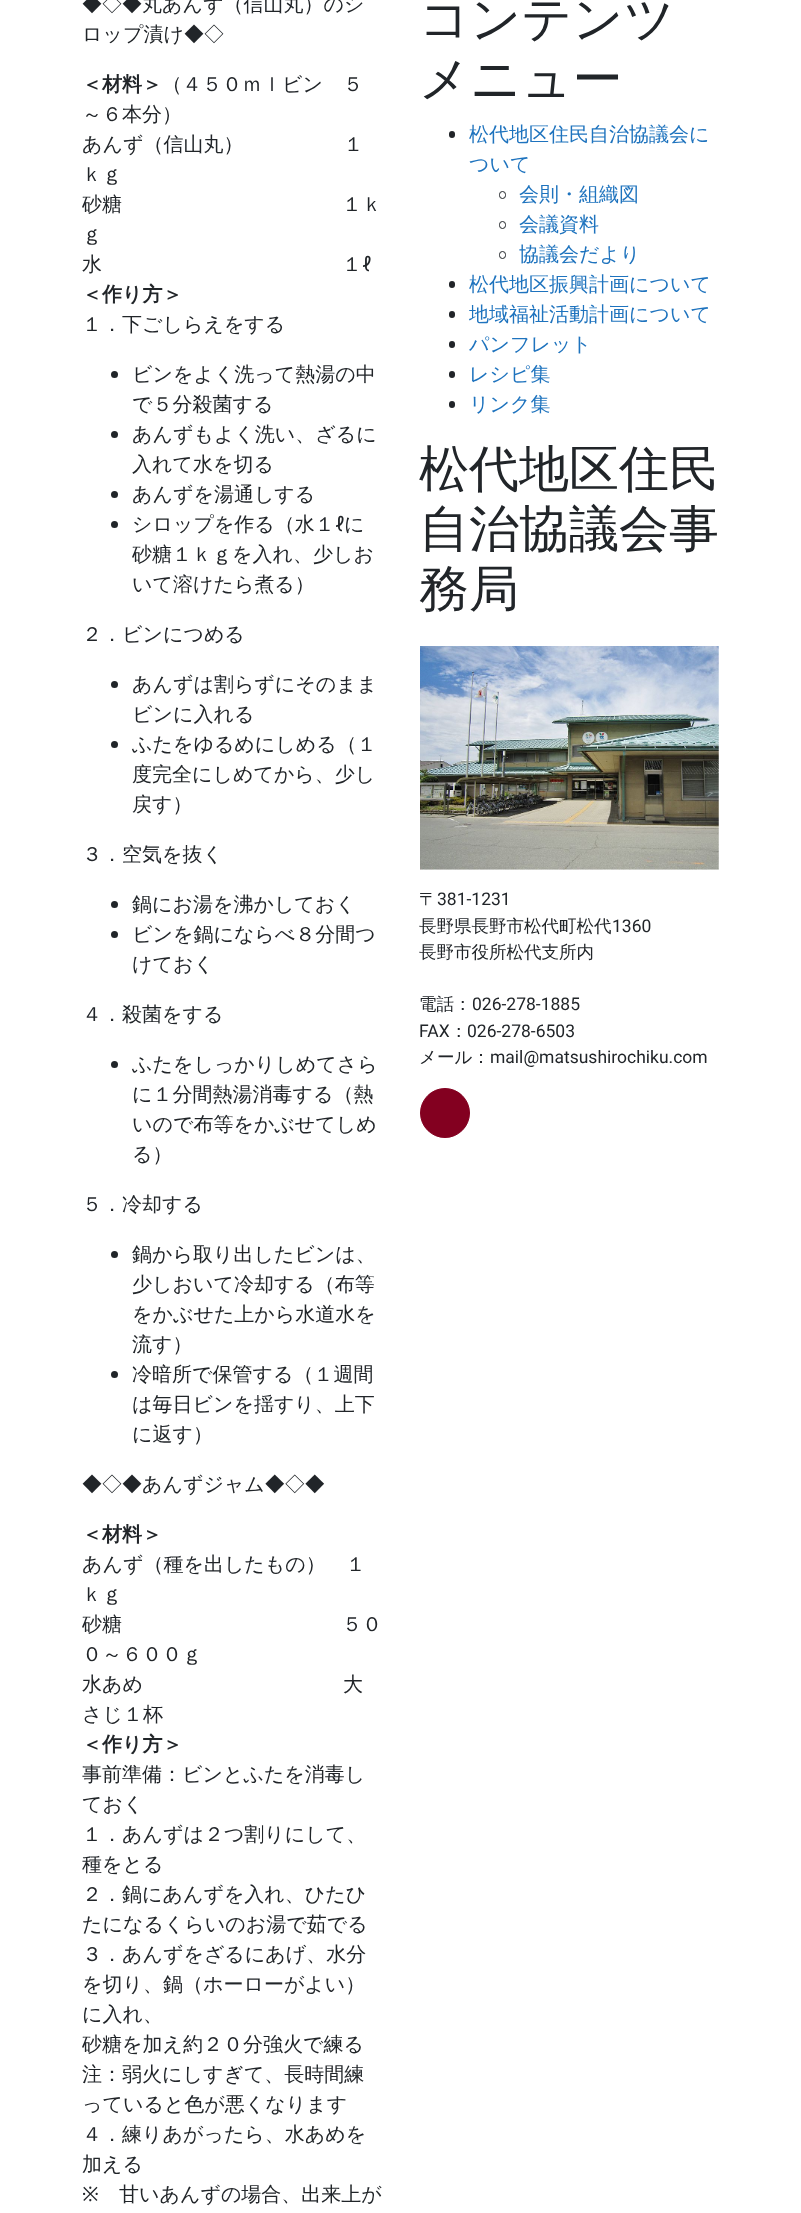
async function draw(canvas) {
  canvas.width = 801
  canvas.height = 2213
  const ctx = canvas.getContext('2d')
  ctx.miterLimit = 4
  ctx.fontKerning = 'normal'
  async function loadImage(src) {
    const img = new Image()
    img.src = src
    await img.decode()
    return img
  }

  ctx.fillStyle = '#fff'
  ctx.fillRect(0, 0, 801, 2213)
  ctx.font = '500 20px WenQuanYi Zen Hei'
  ctx.fillStyle = '#212529'
  ctx.fillText('◆◇◆丸あんず（信山丸）のシ', 82, 11)
  ctx.fillText('ロップ漬け◆◇', 82, 41)
  ctx.font = 'bold 20px WenQuanYi Zen Hei'
  ctx.fillText('＜材料＞', 82, 91)
  ctx.font = '500 20px WenQuanYi Zen Hei'
  ctx.fillText('（４５０ｍｌビン　５', 162, 91)
  ctx.fillText('～６本分）', 82, 121)
  ctx.fillText('あんず（信山丸）　　　　　１', 82, 151)
  ctx.fillText('ｋｇ', 82, 181)
  ctx.fillText('砂糖　　　　　　　　　　　１ｋ', 82, 211)
  ctx.fillText('ｇ', 82, 241)
  ctx.fillText('水　　　　　　　　　　　　１', 82, 271)
  ctx.font = '20px Roboto'
  ctx.fillText('ℓ', 362, 271)
  ctx.font = 'bold 20px WenQuanYi Zen Hei'
  ctx.fillText('＜作り方＞', 82, 301)
  ctx.font = '500 20px WenQuanYi Zen Hei'
  ctx.fillText('１．下ごしらえをする', 82, 331)
  ctx.beginPath()
  ctx.arc(114.5, 374.5, 3.5, 0, 2 * Math.PI)
  ctx.fill()
  ctx.fillText('ビンをよく洗って熱湯の中', 132, 381)
  ctx.fillText('で５分殺菌する', 132, 411)
  ctx.beginPath()
  ctx.arc(114.5, 434.5, 3.5, 0, 2 * Math.PI)
  ctx.fill()
  ctx.fillText('あんずもよく洗い、ざるに', 132, 441)
  ctx.fillText('入れて水を切る', 132, 471)
  ctx.beginPath()
  ctx.arc(114.5, 494.5, 3.5, 0, 2 * Math.PI)
  ctx.fill()
  ctx.fillText('あんずを湯通しする', 132, 501)
  ctx.beginPath()
  ctx.arc(114.5, 524.5, 3.5, 0, 2 * Math.PI)
  ctx.fill()
  ctx.fillText('シロップを作る（水１', 132, 531)
  ctx.font = '20px Roboto'
  ctx.fillText('ℓ', 335, 531)
  ctx.font = '500 20px WenQuanYi Zen Hei'
  ctx.fillText('に', 344, 531)
  ctx.fillText('砂糖１ｋｇを入れ、少しお', 132, 561)
  ctx.fillText('いて溶けたら煮る）', 132, 591)
  ctx.fillText('２．ビンにつめる', 82, 641)
  ctx.beginPath()
  ctx.arc(114.5, 684.5, 3.5, 0, 2 * Math.PI)
  ctx.fill()
  ctx.fillText('あんずは割らずにそのまま', 132, 691)
  ctx.fillText('ビンに入れる', 132, 721)
  ctx.beginPath()
  ctx.arc(114.5, 744.5, 3.5, 0, 2 * Math.PI)
  ctx.fill()
  ctx.fillText('ふたをゆるめにしめる（１', 132, 751)
  ctx.fillText('度完全にしめてから、少し', 132, 781)
  ctx.fillText('戻す）', 132, 811)
  ctx.fillText('３．空気を抜く', 82, 861)
  ctx.beginPath()
  ctx.arc(114.5, 904.5, 3.5, 0, 2 * Math.PI)
  ctx.fill()
  ctx.fillText('鍋にお湯を沸かしておく', 132, 911)
  ctx.beginPath()
  ctx.arc(114.5, 934.5, 3.5, 0, 2 * Math.PI)
  ctx.fill()
  ctx.fillText('ビンを鍋にならべ８分間つ', 132, 941)
  ctx.fillText('けておく', 132, 971)
  ctx.fillText('４．殺菌をする', 82, 1021)
  ctx.beginPath()
  ctx.arc(114.5, 1064.5, 3.5, 0, 2 * Math.PI)
  ctx.fill()
  ctx.fillText('ふたをしっかりしめてさら', 132, 1071)
  ctx.fillText('に１分間熱湯消毒する（熱', 132, 1101)
  ctx.fillText('いので布等をかぶせてしめ', 132, 1131)
  ctx.fillText('る）', 132, 1161)
  ctx.fillText('５．冷却する', 82, 1211)
  ctx.beginPath()
  ctx.arc(114.5, 1254.5, 3.5, 0, 2 * Math.PI)
  ctx.fill()
  ctx.fillText('鍋から取り出したビンは、', 132, 1261)
  ctx.fillText('少しおいて冷却する（布等', 132, 1291)
  ctx.fillText('をかぶせた上から水道水を', 132, 1321)
  ctx.fillText('流す）', 132, 1351)
  ctx.beginPath()
  ctx.arc(114.5, 1374.5, 3.5, 0, 2 * Math.PI)
  ctx.fill()
  ctx.fillText('冷暗所で保管する（１週間', 132, 1381)
  ctx.fillText('は毎日ビンを揺すり、上下', 132, 1411)
  ctx.fillText('に返す）', 132, 1441)
  ctx.fillText('◆◇◆あんずジャム◆◇◆', 82, 1491)
  ctx.font = 'bold 20px WenQuanYi Zen Hei'
  ctx.fillText('＜材料＞', 82, 1541)
  ctx.font = '500 20px WenQuanYi Zen Hei'
  ctx.fillText('あんず（種を出したもの）　１', 82, 1571)
  ctx.fillText('ｋｇ', 82, 1601)
  ctx.fillText('砂糖　　　　　　　　　　　５０', 82, 1631)
  ctx.fillText('０～６００ｇ', 82, 1661)
  ctx.fillText('水あめ　　　　　　　　　　大', 82, 1691)
  ctx.fillText('さじ１杯', 82, 1721)
  ctx.font = 'bold 20px WenQuanYi Zen Hei'
  ctx.fillText('＜作り方＞', 82, 1751)
  ctx.font = '500 20px WenQuanYi Zen Hei'
  ctx.fillText('事前準備：ビンとふたを消毒し', 82, 1781)
  ctx.fillText('ておく', 82, 1811)
  ctx.fillText('１．あんずは２つ割りにして、', 82, 1841)
  ctx.fillText('種をとる', 82, 1871)
  ctx.fillText('２．鍋にあんずを入れ、ひたひ', 82, 1901)
  ctx.fillText('たになるくらいのお湯で茹でる', 82, 1931)
  ctx.fillText('３．あんずをざるにあげ、水分', 82, 1961)
  ctx.fillText('を切り、鍋（ホーローがよい）', 82, 1991)
  ctx.fillText('に入れ、', 82, 2021)
  ctx.fillText('砂糖を加え約２０分強火で練る', 82, 2051)
  ctx.fillText('注：弱火にしすぎて、長時間練', 82, 2081)
  ctx.fillText('っていると色が悪くなります', 82, 2111)
  ctx.fillText('４．練りあがったら、水あめを', 82, 2141)
  ctx.fillText('加える', 82, 2171)
  ctx.font = '20px Noto Sans'
  ctx.fillText('※', 82, 2201)
  ctx.font = '500 20px WenQuanYi Zen Hei'
  ctx.fillText('甘いあんずの場合、出来上が', 119, 2201)
  ctx.font = '500 50px WenQuanYi Zen Hei'
  ctx.fillText('コンテンツ', 419, 36)
  ctx.fillText('メニュー', 419, 96)
  ctx.beginPath()
  ctx.roundRect(449, 131, 6, 7, 3)
  ctx.fill()
  ctx.font = '500 20px WenQuanYi Zen Hei'
  ctx.fillStyle = '#1e73be'
  ctx.fillText('松代地区住民自治協議会に', 469, 141)
  ctx.fillText('ついて', 469, 171)
  ctx.beginPath()
  ctx.roundRect(499.5, 191.5, 6, 7, 3)
  ctx.strokeStyle = '#212529'
  ctx.stroke()
  ctx.fillText('会則・組織図', 519, 201)
  ctx.beginPath()
  ctx.roundRect(499.5, 221.5, 6, 7, 3)
  ctx.stroke()
  ctx.fillText('会議資料', 519, 231)
  ctx.beginPath()
  ctx.roundRect(499.5, 251.5, 6, 7, 3)
  ctx.stroke()
  ctx.fillText('協議会だより', 519, 261)
  ctx.fillStyle = '#212529'
  ctx.beginPath()
  ctx.roundRect(449, 281, 6, 7, 3)
  ctx.fill()
  ctx.fillStyle = '#1e73be'
  ctx.fillText('松代地区振興計画について', 469, 291)
  ctx.fillStyle = '#212529'
  ctx.beginPath()
  ctx.roundRect(449, 311, 6, 7, 3)
  ctx.fill()
  ctx.fillStyle = '#1e73be'
  ctx.fillText('地域福祉活動計画について', 469, 321)
  ctx.fillStyle = '#212529'
  ctx.beginPath()
  ctx.roundRect(449, 341, 6, 7, 3)
  ctx.fill()
  ctx.fillStyle = '#1e73be'
  ctx.fillText('パンフレット', 469, 351)
  ctx.fillStyle = '#212529'
  ctx.beginPath()
  ctx.roundRect(449, 371, 6, 7, 3)
  ctx.fill()
  ctx.fillStyle = '#1e73be'
  ctx.fillText('レシピ集', 469, 381)
  ctx.fillStyle = '#212529'
  ctx.beginPath()
  ctx.roundRect(449, 401, 6, 7, 3)
  ctx.fill()
  ctx.fillStyle = '#1e73be'
  ctx.fillText('リンク集', 469, 411)
  ctx.font = '500 50px WenQuanYi Zen Hei'
  ctx.fillStyle = '#212529'
  ctx.fillText('松代地区住民', 419, 486)
  ctx.fillText('自治協議会事', 419, 546)
  ctx.fillText('務局', 419, 606)
  ctx.drawImage(await loadImage('image0.png'), 420, 646, 299, 224)
  ctx.font = '500 17.5px WenQuanYi Zen Hei'
  ctx.fillText('〒', 419, 905)
  ctx.font = '17.5px Roboto'
  ctx.fillText('381-1231', 437, 905)
  ctx.font = '500 17.5px WenQuanYi Zen Hei'
  ctx.fillText('長野県長野市松代町松代', 419, 932)
  ctx.font = '17.5px Roboto'
  ctx.fillText('1360', 612, 932)
  ctx.font = '500 17.5px WenQuanYi Zen Hei'
  ctx.fillText('長野市役所松代支所内', 419, 958)
  ctx.fillText('電話：', 419, 1010)
  ctx.font = '17.5px Roboto'
  ctx.fillText('026-278-1885', 472, 1010)
  ctx.fillText('FAX', 419, 1037)
  ctx.font = '500 17.5px WenQuanYi Zen Hei'
  ctx.fillText('：', 450, 1037)
  ctx.font = '17.5px Roboto'
  ctx.fillText('026-278-6503', 467, 1037)
  ctx.font = '500 17.5px WenQuanYi Zen Hei'
  ctx.fillText('メール：', 419, 1063)
  ctx.font = '17.5px Roboto'
  ctx.fillText('mail@matsushirochiku.com', 490, 1063)
  ctx.fillStyle = '#830020'
  ctx.beginPath()
  ctx.arc(445, 1113, 24.5, 0, 2 * Math.PI)
  ctx.fill()
  ctx.strokeStyle = '#830020'
  ctx.stroke()
}

draw(document.querySelector('canvas'))
